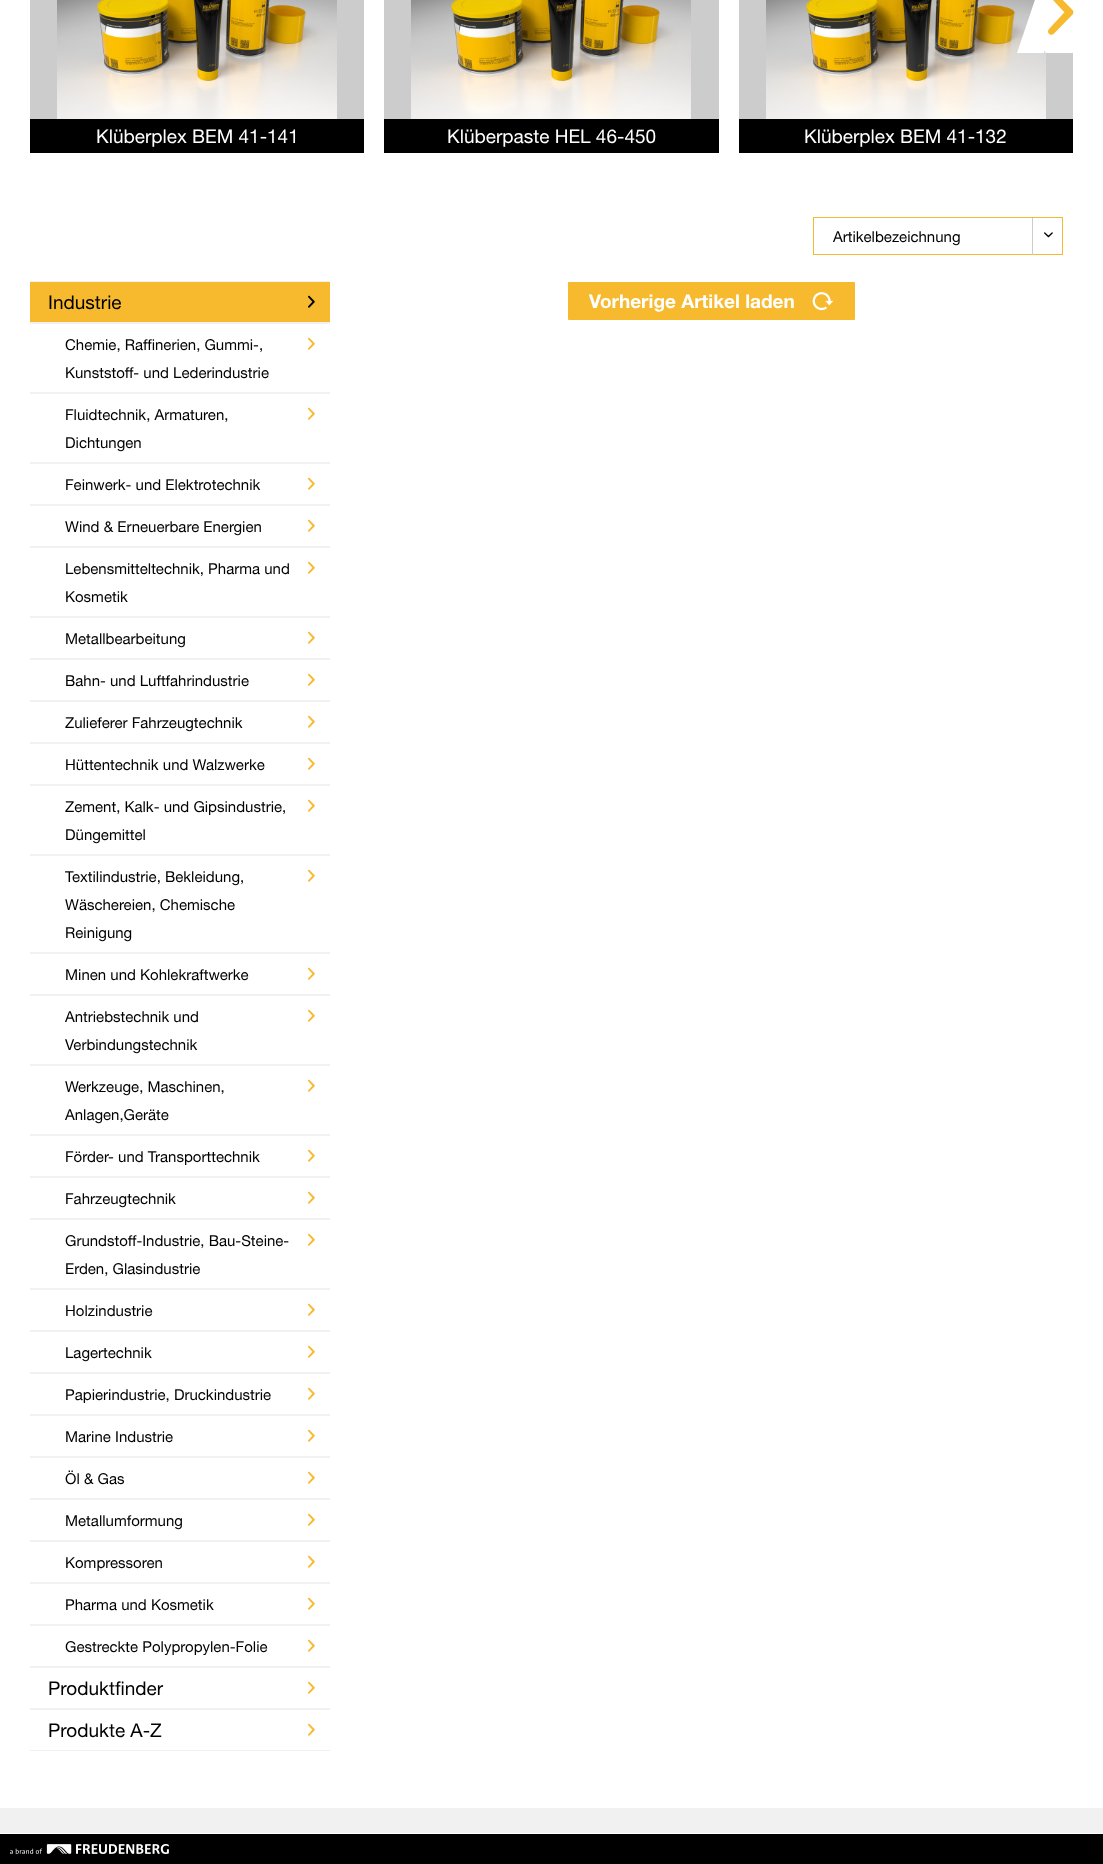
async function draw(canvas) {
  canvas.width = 1103
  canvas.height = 1864
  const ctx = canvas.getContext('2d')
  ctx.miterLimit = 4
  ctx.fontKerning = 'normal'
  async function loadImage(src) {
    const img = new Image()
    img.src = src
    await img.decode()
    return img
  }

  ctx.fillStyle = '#fff'
  ctx.fillRect(0, 0, 1103, 1864)
  ctx.fillStyle = '#ccc'
  ctx.fillRect(739, 0, 334, 119)
  ctx.drawImage(await loadImage('image1.png'), 766, 0, 280, 119)
  ctx.fillStyle = '#fff'
  ctx.beginPath()
  ctx.moveTo(1047, -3)
  ctx.lineTo(1084, -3)
  ctx.lineTo(1084, 53)
  ctx.lineTo(1047, 53)
  ctx.bezierCurveTo(1045.5, 53, 1044, 51.5, 1044, 50)
  ctx.lineTo(1044, 0)
  ctx.bezierCurveTo(1044, -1.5, 1045.5, -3, 1047, -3)
  ctx.closePath()
  ctx.fill()
  ctx.beginPath()
  ctx.moveTo(1044, 53)
  ctx.lineTo(1017, 53)
  ctx.lineTo(1044, -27)
  ctx.closePath()
  ctx.fill()
  ctx.drawImage(await loadImage('image0.png'), 1048, 0, 26, 35)
  ctx.fillStyle = '#ccc'
  ctx.fillRect(30, 0, 334, 119)
  ctx.drawImage(await loadImage('image1.png'), 57, 0, 280, 119)
  ctx.fillStyle = '#000'
  ctx.fillRect(30, 119, 334, 34)
  ctx.font = '19px Helvetica Neue'
  ctx.fillStyle = '#fff'
  ctx.fillText('Klüberplex BEM 41-141', 96, 143)
  ctx.fillStyle = '#ccc'
  ctx.fillRect(384, 0, 335, 119)
  ctx.drawImage(await loadImage('image2.png'), 411, 0, 280, 119)
  ctx.fillStyle = '#000'
  ctx.fillRect(384, 119, 335, 34)
  ctx.fillStyle = '#fff'
  ctx.fillText('Klüberpaste HEL 46-450', 447, 143)
  ctx.fillStyle = '#000'
  ctx.fillRect(739, 119, 334, 34)
  ctx.fillStyle = '#fff'
  ctx.fillText('Klüberplex BEM 41-132', 804, 143)
  ctx.strokeStyle = '#f7b92e'
  ctx.strokeRect(813.5, 217.5, 249, 37)
  ctx.font = '15px Helvetica Neue'
  ctx.fillStyle = '#000'
  ctx.fillText('Artikelbezeichnung', 833, 242)
  ctx.fillStyle = '#ccc'
  ctx.fillRect(1032, 218, 1, 37)
  ctx.drawImage(await loadImage('image3.png'), 1044, 232, 9, 6)
  ctx.fillStyle = '#f7b92e'
  ctx.beginPath()
  ctx.rect(568.5, 282.5, 286, 37)
  ctx.fill()
  ctx.stroke()
  ctx.font = 'bold 19px Helvetica Neue'
  ctx.fillStyle = '#fff'
  ctx.fillText('Vorherige Artikel laden', 589, 308)
  ctx.drawImage(await loadImage('image4.png'), 812, 292, 22, 19)
  ctx.fillStyle = '#f7b92e'
  ctx.fillRect(30, 282, 300, 40)
  ctx.fillStyle = '#f1f1f1'
  ctx.fillRect(30, 281, 300, 1)
  ctx.fillRect(30, 322, 300, 2)
  ctx.font = '19px Helvetica Neue'
  ctx.fillStyle = '#000'
  ctx.fillText('Industrie', 48, 309)
  ctx.drawImage(await loadImage('image5.png'), 308, 295, 7, 13)
  ctx.fillStyle = '#f1f1f1'
  ctx.fillRect(30, 392, 300, 2)
  ctx.font = '15px Helvetica Neue'
  ctx.fillStyle = '#000'
  ctx.fillText('Chemie, Raffinerien, Gummi-,', 65, 350)
  ctx.drawImage(await loadImage('image6.png'), 308, 337, 7, 13)
  ctx.fillText('Kunststoff- und Lederindustrie', 65, 378)
  ctx.fillStyle = '#f1f1f1'
  ctx.fillRect(30, 462, 300, 2)
  ctx.fillStyle = '#000'
  ctx.fillText('Fluidtechnik, Armaturen,', 65, 420)
  ctx.drawImage(await loadImage('image6.png'), 308, 407, 7, 13)
  ctx.fillText('Dichtungen', 65, 448)
  ctx.fillStyle = '#f1f1f1'
  ctx.fillRect(30, 504, 300, 2)
  ctx.fillStyle = '#000'
  ctx.fillText('Feinwerk- und Elektrotechnik', 65, 490)
  ctx.drawImage(await loadImage('image6.png'), 308, 477, 7, 13)
  ctx.fillStyle = '#f1f1f1'
  ctx.fillRect(30, 546, 300, 2)
  ctx.fillStyle = '#000'
  ctx.fillText('Wind & Erneuerbare Energien', 65, 532)
  ctx.drawImage(await loadImage('image6.png'), 308, 519, 7, 13)
  ctx.fillStyle = '#f1f1f1'
  ctx.fillRect(30, 616, 300, 2)
  ctx.fillStyle = '#000'
  ctx.fillText('Lebensmitteltechnik, Pharma und', 65, 574)
  ctx.drawImage(await loadImage('image6.png'), 308, 561, 7, 13)
  ctx.fillText('Kosmetik', 65, 602)
  ctx.fillStyle = '#f1f1f1'
  ctx.fillRect(30, 658, 300, 2)
  ctx.fillStyle = '#000'
  ctx.fillText('Metallbearbeitung', 65, 644)
  ctx.drawImage(await loadImage('image6.png'), 308, 631, 7, 13)
  ctx.fillStyle = '#f1f1f1'
  ctx.fillRect(30, 700, 300, 2)
  ctx.fillStyle = '#000'
  ctx.fillText('Bahn- und Luftfahrindustrie', 65, 686)
  ctx.drawImage(await loadImage('image6.png'), 308, 673, 7, 13)
  ctx.fillStyle = '#f1f1f1'
  ctx.fillRect(30, 742, 300, 2)
  ctx.fillStyle = '#000'
  ctx.fillText('Zulieferer Fahrzeugtechnik', 65, 728)
  ctx.drawImage(await loadImage('image6.png'), 308, 715, 7, 13)
  ctx.fillStyle = '#f1f1f1'
  ctx.fillRect(30, 784, 300, 2)
  ctx.fillStyle = '#000'
  ctx.fillText('Hüttentechnik und Walzwerke', 65, 770)
  ctx.drawImage(await loadImage('image6.png'), 308, 757, 7, 13)
  ctx.fillStyle = '#f1f1f1'
  ctx.fillRect(30, 854, 300, 2)
  ctx.fillStyle = '#000'
  ctx.fillText('Zement, Kalk- und Gipsindustrie,', 65, 812)
  ctx.drawImage(await loadImage('image6.png'), 308, 799, 7, 13)
  ctx.fillText('Düngemittel', 65, 840)
  ctx.fillStyle = '#f1f1f1'
  ctx.fillRect(30, 952, 300, 2)
  ctx.fillStyle = '#000'
  ctx.fillText('Textilindustrie, Bekleidung,', 65, 882)
  ctx.drawImage(await loadImage('image6.png'), 308, 869, 7, 13)
  ctx.fillText('Wäschereien, Chemische', 65, 910)
  ctx.fillText('Reinigung', 65, 938)
  ctx.fillStyle = '#f1f1f1'
  ctx.fillRect(30, 994, 300, 2)
  ctx.fillStyle = '#000'
  ctx.fillText('Minen und Kohlekraftwerke', 65, 980)
  ctx.drawImage(await loadImage('image6.png'), 308, 967, 7, 13)
  ctx.fillStyle = '#f1f1f1'
  ctx.fillRect(30, 1064, 300, 2)
  ctx.fillStyle = '#000'
  ctx.fillText('Antriebstechnik und', 65, 1022)
  ctx.drawImage(await loadImage('image6.png'), 308, 1009, 7, 13)
  ctx.fillText('Verbindungstechnik', 65, 1050)
  ctx.fillStyle = '#f1f1f1'
  ctx.fillRect(30, 1134, 300, 2)
  ctx.fillStyle = '#000'
  ctx.fillText('Werkzeuge, Maschinen,', 65, 1092)
  ctx.drawImage(await loadImage('image6.png'), 308, 1079, 7, 13)
  ctx.fillText('Anlagen,Geräte', 65, 1120)
  ctx.fillStyle = '#f1f1f1'
  ctx.fillRect(30, 1176, 300, 2)
  ctx.fillStyle = '#000'
  ctx.fillText('Förder- und Transporttechnik', 65, 1162)
  ctx.drawImage(await loadImage('image6.png'), 308, 1149, 7, 13)
  ctx.fillStyle = '#f1f1f1'
  ctx.fillRect(30, 1218, 300, 2)
  ctx.fillStyle = '#000'
  ctx.fillText('Fahrzeugtechnik', 65, 1204)
  ctx.drawImage(await loadImage('image6.png'), 308, 1191, 7, 13)
  ctx.fillStyle = '#f1f1f1'
  ctx.fillRect(30, 1288, 300, 2)
  ctx.fillStyle = '#000'
  ctx.fillText('Grundstoff-Industrie, Bau-Steine-', 65, 1246)
  ctx.drawImage(await loadImage('image6.png'), 308, 1233, 7, 13)
  ctx.fillText('Erden, Glasindustrie', 65, 1274)
  ctx.fillStyle = '#f1f1f1'
  ctx.fillRect(30, 1330, 300, 2)
  ctx.fillStyle = '#000'
  ctx.fillText('Holzindustrie', 65, 1316)
  ctx.drawImage(await loadImage('image6.png'), 308, 1303, 7, 13)
  ctx.fillStyle = '#f1f1f1'
  ctx.fillRect(30, 1372, 300, 2)
  ctx.fillStyle = '#000'
  ctx.fillText('Lagertechnik', 65, 1358)
  ctx.drawImage(await loadImage('image6.png'), 308, 1345, 7, 13)
  ctx.fillStyle = '#f1f1f1'
  ctx.fillRect(30, 1414, 300, 2)
  ctx.fillStyle = '#000'
  ctx.fillText('Papierindustrie, Druckindustrie', 65, 1400)
  ctx.drawImage(await loadImage('image6.png'), 308, 1387, 7, 13)
  ctx.fillStyle = '#f1f1f1'
  ctx.fillRect(30, 1456, 300, 2)
  ctx.fillStyle = '#000'
  ctx.fillText('Marine Industrie', 65, 1442)
  ctx.drawImage(await loadImage('image6.png'), 308, 1429, 7, 13)
  ctx.fillStyle = '#f1f1f1'
  ctx.fillRect(30, 1498, 300, 2)
  ctx.fillStyle = '#000'
  ctx.fillText('Öl & Gas', 65, 1484)
  ctx.drawImage(await loadImage('image6.png'), 308, 1471, 7, 13)
  ctx.fillStyle = '#f1f1f1'
  ctx.fillRect(30, 1540, 300, 2)
  ctx.fillStyle = '#000'
  ctx.fillText('Metallumformung', 65, 1526)
  ctx.drawImage(await loadImage('image6.png'), 308, 1513, 7, 13)
  ctx.fillStyle = '#f1f1f1'
  ctx.fillRect(30, 1582, 300, 2)
  ctx.fillStyle = '#000'
  ctx.fillText('Kompressoren', 65, 1568)
  ctx.drawImage(await loadImage('image6.png'), 308, 1555, 7, 13)
  ctx.fillStyle = '#f1f1f1'
  ctx.fillRect(30, 1624, 300, 2)
  ctx.fillStyle = '#000'
  ctx.fillText('Pharma und Kosmetik', 65, 1610)
  ctx.drawImage(await loadImage('image6.png'), 308, 1597, 7, 13)
  ctx.fillStyle = '#f1f1f1'
  ctx.fillRect(30, 1666, 300, 2)
  ctx.fillStyle = '#000'
  ctx.fillText('Gestreckte Polypropylen-Folie', 65, 1652)
  ctx.drawImage(await loadImage('image6.png'), 308, 1639, 7, 13)
  ctx.fillStyle = '#f1f1f1'
  ctx.fillRect(30, 1708, 300, 2)
  ctx.font = '19px Helvetica Neue'
  ctx.fillStyle = '#000'
  ctx.fillText('Produktfinder', 48, 1695)
  ctx.drawImage(await loadImage('image6.png'), 308, 1681, 7, 13)
  ctx.fillStyle = '#f1f1f1'
  ctx.fillRect(30, 1750, 300, 1)
  ctx.fillStyle = '#000'
  ctx.fillText('Produkte A-Z', 48, 1737)
  ctx.drawImage(await loadImage('image6.png'), 308, 1723, 7, 13)
  ctx.fillStyle = '#f1f1f1'
  ctx.fillRect(0, 1808, 1103, 25)
  ctx.fillStyle = '#000'
  ctx.fillRect(0, 1834, 1103, 30)
  ctx.drawImage(await loadImage('image7.png'), 10, 1844, 159, 10)
}

draw(document.querySelector('canvas'))
